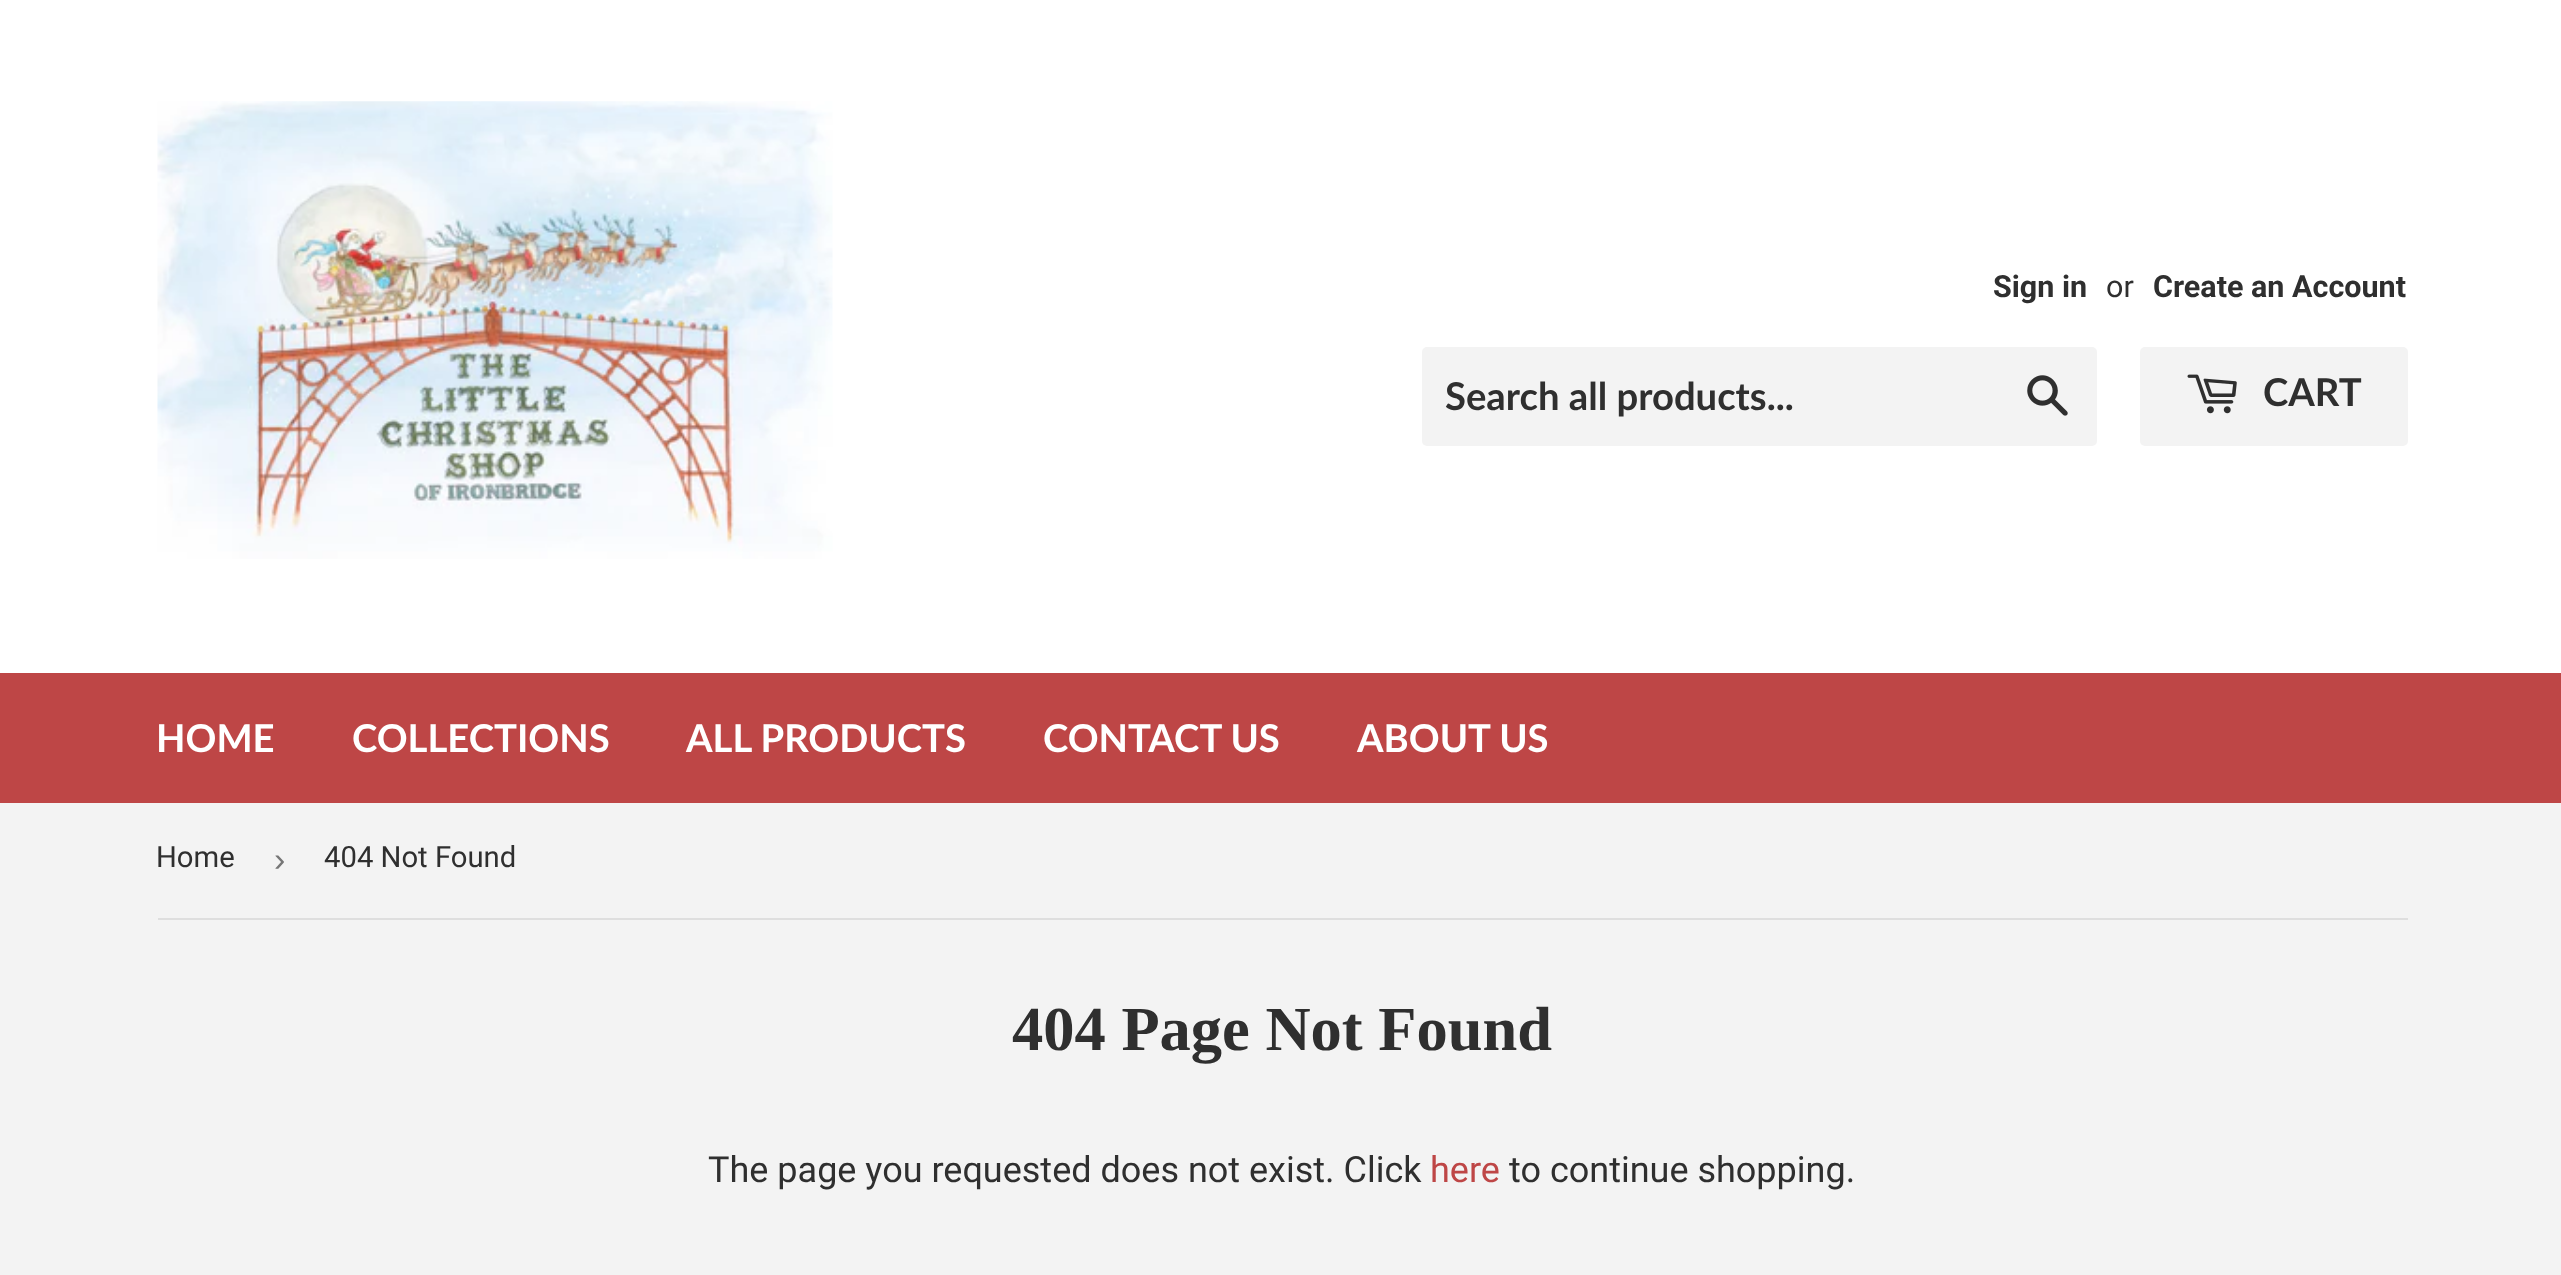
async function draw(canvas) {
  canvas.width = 2561
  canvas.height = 1275
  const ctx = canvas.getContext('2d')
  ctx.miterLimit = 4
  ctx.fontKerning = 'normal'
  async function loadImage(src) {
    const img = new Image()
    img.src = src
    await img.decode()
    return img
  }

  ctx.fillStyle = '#f3f3f3'
  ctx.fillRect(0, 0, 2561, 1275)
  ctx.fillStyle = '#fff'
  ctx.fillRect(0, 0, 2561, 673)
  ctx.drawImage(await loadImage('image0.png'), 157, 101, 676, 458)
  ctx.font = 'bold 30.5px Roboto'
  ctx.fillStyle = '#2f2f2f'
  ctx.fillText('Sign in', 1993, 297)
  ctx.font = '30.5px Roboto'
  ctx.fillText('or', 2106, 297)
  ctx.font = 'bold 30.5px Roboto'
  ctx.fillText('Create an Account', 2153, 297)
  ctx.fillStyle = '#f3f3f3'
  ctx.beginPath()
  ctx.roundRect(1422, 347, 675, 99, 5)
  ctx.fill()
  ctx.font = 'bold 38.25px Lato'
  ctx.fillStyle = '#2f2f2f'
  ctx.fillText('Search all products...', 1445, 410)
  ctx.drawImage(await loadImage('image1.png'), 2027, 375, 41, 41)
  ctx.fillStyle = '#f3f3f3'
  ctx.beginPath()
  ctx.roundRect(2140, 347, 268, 99, 5)
  ctx.fill()
  ctx.drawImage(await loadImage('image2.png'), 2187, 374, 50, 40)
  ctx.fillStyle = '#2f2f2f'
  ctx.fillText('CART', 2263, 406)
  ctx.fillStyle = '#be4646'
  ctx.fillRect(0, 673, 2561, 130)
  ctx.fillStyle = '#fff'
  ctx.fillText('HOME', 156, 752)
  ctx.fillText('COLLECTIONS', 352, 752)
  ctx.fillText('ALL PRODUCTS', 686, 752)
  ctx.fillText('CONTACT US', 1043, 752)
  ctx.fillText('ABOUT US', 1357, 752)
  ctx.fillStyle = '#dedede'
  ctx.fillRect(158, 918, 2250, 2)
  ctx.font = '29.25px Roboto'
  ctx.fillStyle = '#2f2f2f'
  ctx.fillText('Home', 156, 867)
  ctx.font = '34px Liberation Sans'
  ctx.fillStyle = '#767676'
  ctx.fillText('›', 274, 871)
  ctx.font = '29.25px Roboto'
  ctx.fillStyle = '#2f2f2f'
  ctx.fillText('404 Not Found', 324, 867)
  ctx.font = 'bold 62.5px Liberation Serif'
  ctx.fillText('404 Page Not Found', 1012, 1050)
  ctx.font = '36px Roboto'
  ctx.fillText('The page you requested does not exist. Click', 708, 1182)
  ctx.fillStyle = '#be4646'
  ctx.fillText('here', 1430, 1182)
  ctx.fillStyle = '#2f2f2f'
  ctx.fillText('to continue shopping.', 1509, 1182)
}

draw(document.querySelector('canvas'))
